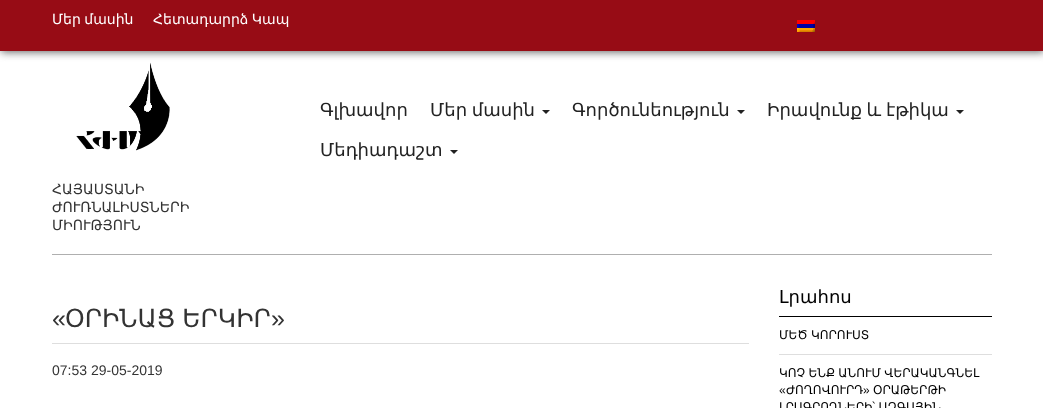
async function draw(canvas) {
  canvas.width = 1043
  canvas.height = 408
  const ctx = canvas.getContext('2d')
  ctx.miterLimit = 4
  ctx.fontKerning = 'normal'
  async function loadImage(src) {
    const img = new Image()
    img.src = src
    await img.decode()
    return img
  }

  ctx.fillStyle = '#fff'
  ctx.fillRect(0, 0, 1043, 408)
  ctx.fillStyle = '#616161'
  ctx.filter = 'blur(4.5px)'
  ctx.beginPath()
  ctx.rect(1, 1, 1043, 51)
  ctx.fill()
  ctx.filter = 'none'
  ctx.fillStyle = '#970c15'
  ctx.fillRect(0, 0, 1043, 51)
  ctx.wordSpacing = '-1px'
  ctx.font = '14px DejaVu Sans'
  ctx.fillStyle = '#fff'
  ctx.fillText('Մեր մասին', 52, 24)
  ctx.fillText('Հետադարրձ Կապ', 153, 24)
  ctx.drawImage(await loadImage('image0.png'), 797, 20, 18, 12)
  ctx.fillStyle = '#afafaf'
  ctx.fillRect(52, 254, 940, 1)
  ctx.wordSpacing = '0px'
  ctx.font = '18px DejaVu Sans'
  ctx.fillStyle = '#222'
  ctx.fillText('Գլխավոր', 320, 116)
  ctx.wordSpacing = '-1px'
  ctx.fillText('Մեր մասին', 430, 116)
  ctx.beginPath()
  ctx.moveTo(542, 110)
  ctx.lineTo(550, 110)
  ctx.lineTo(546, 114)
  ctx.closePath()
  ctx.fill()
  ctx.wordSpacing = '0px'
  ctx.fillText('Գործունեություն', 572, 116)
  ctx.beginPath()
  ctx.moveTo(737, 110)
  ctx.lineTo(745, 110)
  ctx.lineTo(741, 114)
  ctx.closePath()
  ctx.fill()
  ctx.wordSpacing = '-1px'
  ctx.fillText('Իրավունք և էթիկա', 767, 116)
  ctx.beginPath()
  ctx.moveTo(956, 110)
  ctx.lineTo(964, 110)
  ctx.lineTo(960, 114)
  ctx.closePath()
  ctx.fill()
  ctx.wordSpacing = '0px'
  ctx.fillText('Մեդիադաշտ', 320, 156)
  ctx.beginPath()
  ctx.moveTo(450, 150)
  ctx.lineTo(458, 150)
  ctx.lineTo(454, 154)
  ctx.closePath()
  ctx.fill()
  ctx.drawImage(await loadImage('image1.png'), 76, 62, 94, 89)
  ctx.font = '14px DejaVu Sans'
  ctx.fillStyle = '#333'
  ctx.fillText('ՀԱՅԱՍՏԱՆԻ', 52, 194)
  ctx.fillText('ԺՈՒՌՆԱԼԻՍՏՆԵՐԻ', 52, 212)
  ctx.fillText('ՄԻՈՒԹՅՈՒՆ', 52, 230)
  ctx.fillStyle = '#dedede'
  ctx.fillRect(52, 343, 697, 1)
  ctx.font = '25px Liberation Sans'
  ctx.fillStyle = '#333'
  ctx.fillText('«', 52, 327)
  ctx.wordSpacing = '-1px'
  ctx.font = '25px DejaVu Sans'
  ctx.fillText('ՕՐԻՆԱՑ ԵՐԿԻՐ', 65, 327)
  ctx.wordSpacing = '0px'
  ctx.font = '25px Liberation Sans'
  ctx.fillText('»', 271, 327)
  ctx.font = '14px Liberation Sans'
  ctx.fillText('07:53 29-05-2019', 52, 375)
  ctx.fillStyle = '#000'
  ctx.fillRect(779, 316, 213, 1)
  ctx.font = '18px DejaVu Sans'
  ctx.fillText('Լրահոս', 779, 303)
  ctx.fillStyle = '#dedede'
  ctx.fillRect(779, 354, 213, 1)
  ctx.wordSpacing = '-0.5px'
  ctx.font = '12px DejaVu Sans'
  ctx.fillStyle = '#000'
  ctx.fillText('ՄԵԾ ԿՈՐՈՒՍՏ', 779, 339)
  ctx.fillText('ԿՈՉ ԵՆՔ ԱՆՈՒՄ ՎԵՐԱԿԱՆԳՆԵԼ', 779, 377)
  ctx.wordSpacing = '0px'
  ctx.font = '12px Liberation Sans'
  ctx.fillText('«', 779, 394)
  ctx.font = '12px DejaVu Sans'
  ctx.fillText('ԺՈՂՈՎՈՒՐԴ', 786, 394)
  ctx.font = '12px Liberation Sans'
  ctx.fillText('»', 863, 394)
  ctx.font = '12px DejaVu Sans'
  ctx.fillText('ՕՐԱԹԵՐԹԻ', 873, 394)
  ctx.wordSpacing = '-0.5px'
  ctx.fillText('ԼՐԱԳՐՈՂՆԵՐԻ՝ ԱԶԳԱՅԻՆ', 779, 411)
}

draw(document.querySelector('canvas'))
